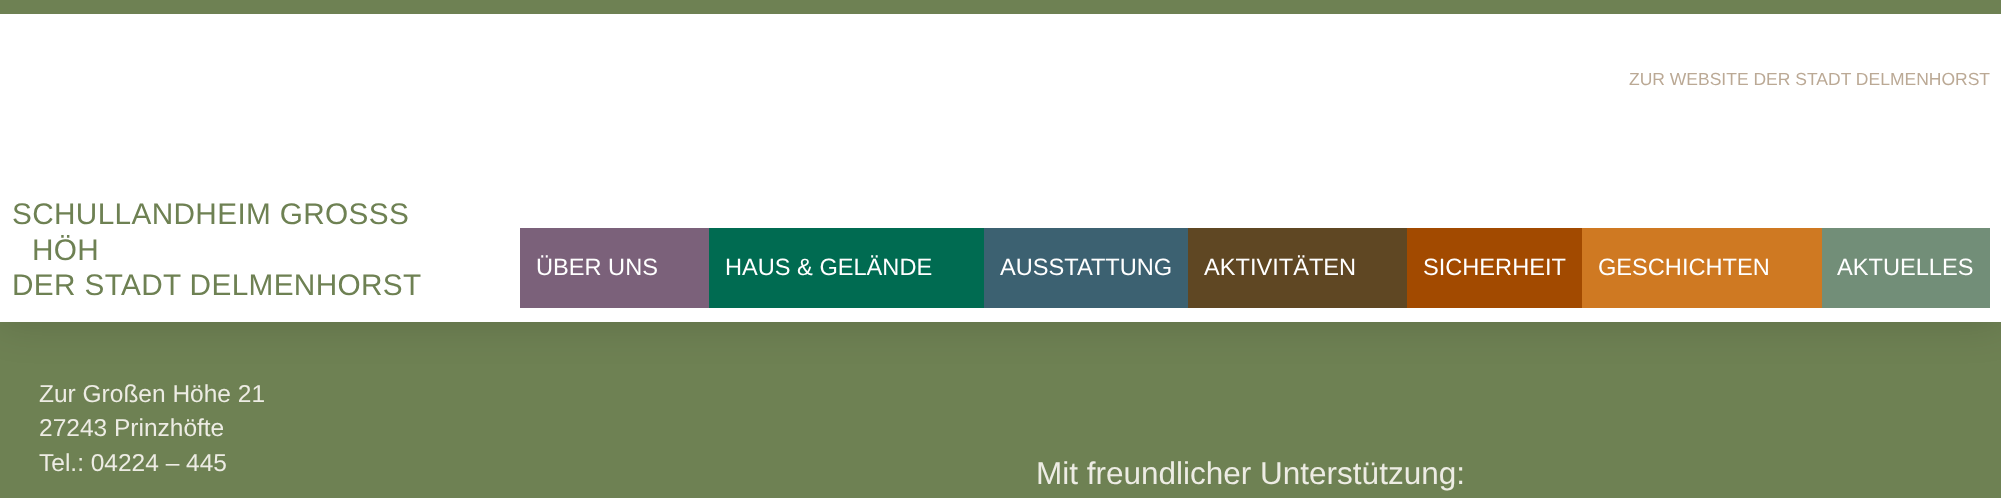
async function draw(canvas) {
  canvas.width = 2001
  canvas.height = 498
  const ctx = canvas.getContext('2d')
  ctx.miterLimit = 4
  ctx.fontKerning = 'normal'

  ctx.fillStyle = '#6e8153'
  ctx.fillRect(0, 0, 2001, 498)
  ctx.fillStyle = '#00000026'
  ctx.filter = 'blur(21px)'
  ctx.beginPath()
  ctx.rect(0, 0, 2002, 322)
  ctx.fill()
  ctx.filter = 'none'
  ctx.fillStyle = '#fff'
  ctx.fillRect(0, 14, 2001, 308)
  ctx.fillStyle = '#6e8153'
  ctx.fillRect(0, 0, 2001, 14)
  ctx.letterSpacing = '0.35px'
  ctx.font = '29.75px Liberation Sans'
  ctx.fillText('SCHULLANDHEIM GROSSS', 12, 224)
  ctx.fillText('HÖH', 32, 260)
  ctx.fillText('DER STADT DELMENHORST', 12, 295)
  ctx.letterSpacing = '0px'
  ctx.font = '17.5px Liberation Sans'
  ctx.fillStyle = '#bba995'
  ctx.fillText('ZUR WEBSITE DER STADT DELMENHORST', 1629, 85)
  ctx.fillStyle = '#7b617a'
  ctx.fillRect(520, 228, 189, 80)
  ctx.font = '23.6px Liberation Sans'
  ctx.fillStyle = '#fff'
  ctx.fillText('ÜBER UNS', 536, 275)
  ctx.fillStyle = '#006b51'
  ctx.fillRect(709, 228, 275, 80)
  ctx.fillStyle = '#fff'
  ctx.fillText('HAUS & GELÄNDE', 725, 275)
  ctx.fillStyle = '#3c6171'
  ctx.fillRect(984, 228, 204, 80)
  ctx.fillStyle = '#fff'
  ctx.fillText('AUSSTATTUNG', 1000, 275)
  ctx.fillStyle = '#5f4723'
  ctx.fillRect(1188, 228, 219, 80)
  ctx.fillStyle = '#fff'
  ctx.fillText('AKTIVITÄTEN', 1204, 275)
  ctx.fillStyle = '#a24a00'
  ctx.fillRect(1407, 228, 175, 80)
  ctx.fillStyle = '#fff'
  ctx.fillText('SICHERHEIT', 1423, 275)
  ctx.fillStyle = '#cf7922'
  ctx.fillRect(1582, 228, 240, 80)
  ctx.fillStyle = '#fff'
  ctx.fillText('GESCHICHTEN', 1598, 275)
  ctx.fillStyle = '#728e78'
  ctx.fillRect(1822, 228, 168, 80)
  ctx.fillStyle = '#fff'
  ctx.fillText('AKTUELLES', 1837, 275)
  ctx.font = '24.5px Liberation Sans'
  ctx.fillStyle = '#edece4'
  ctx.fillText('Zur Großen Höhe 21', 39, 402)
  ctx.fillText('27243 Prinzhöfte', 39, 436)
  ctx.fillText('Tel.: 04224 – 445', 39, 471)
  ctx.font = '31.5px Liberation Sans'
  ctx.fillText('Mit freundlicher Unterstützung:', 1036, 484)
}

draw(document.querySelector('canvas'))
